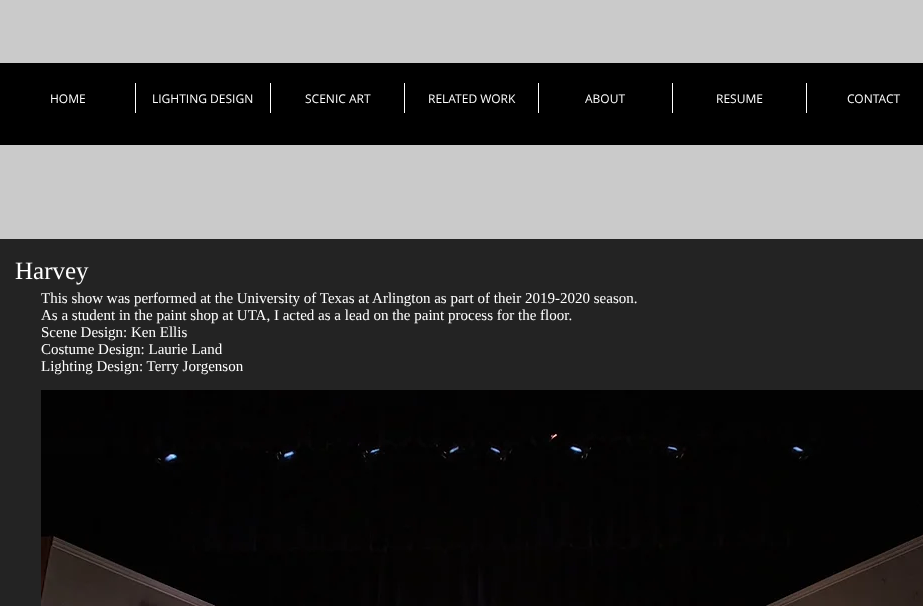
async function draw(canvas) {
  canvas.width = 923
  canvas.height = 606
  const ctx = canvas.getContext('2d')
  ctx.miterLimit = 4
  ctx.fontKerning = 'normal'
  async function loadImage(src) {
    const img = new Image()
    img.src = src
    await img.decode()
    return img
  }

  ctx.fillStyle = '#cacaca'
  ctx.fillRect(0, 0, 923, 606)
  ctx.fillStyle = '#000'
  ctx.fillRect(0, 63, 923, 82)
  ctx.font = '12px Open Sans'
  ctx.fillStyle = '#fff'
  ctx.fillText('HOME', 50, 103)
  ctx.fillRect(135, 83, 1, 30)
  ctx.fillText('LIGHTING DESIGN', 152, 103)
  ctx.fillRect(270, 83, 1, 30)
  ctx.fillText('SCENIC ART', 305, 103)
  ctx.fillRect(404, 83, 1, 30)
  ctx.fillText('RELATED WORK', 428, 103)
  ctx.fillRect(538, 83, 1, 30)
  ctx.fillText('ABOUT', 585, 103)
  ctx.fillRect(672, 83, 1, 30)
  ctx.fillText('RESUME', 716, 103)
  ctx.fillRect(806, 83, 1, 30)
  ctx.fillText('CONTACT', 847, 103)
  ctx.fillStyle = '#232323'
  ctx.fillRect(0, 239, 923, 367)
  ctx.font = '25px Liberation Serif'
  ctx.fillStyle = '#fff'
  ctx.fillText('Harvey', 15, 279)
  ctx.font = '15px Liberation Serif'
  ctx.fillText('This show was performed at the University of Texas at Arlington as part of their 2019-2020 season.', 41, 303)
  ctx.fillText('As a student in the paint shop at UTA, I acted as a lead on the paint process for the floor.', 41, 320)
  ctx.fillText('Scene Design: Ken Ellis', 41, 337)
  ctx.fillText('Costume Design: Laurie Land', 41, 354)
  ctx.fillText('Lighting Design: Terry Jorgenson', 41, 371)
  ctx.drawImage(await loadImage('image0.png'), 41, 390, 882, 216)
}

draw(document.querySelector('canvas'))
